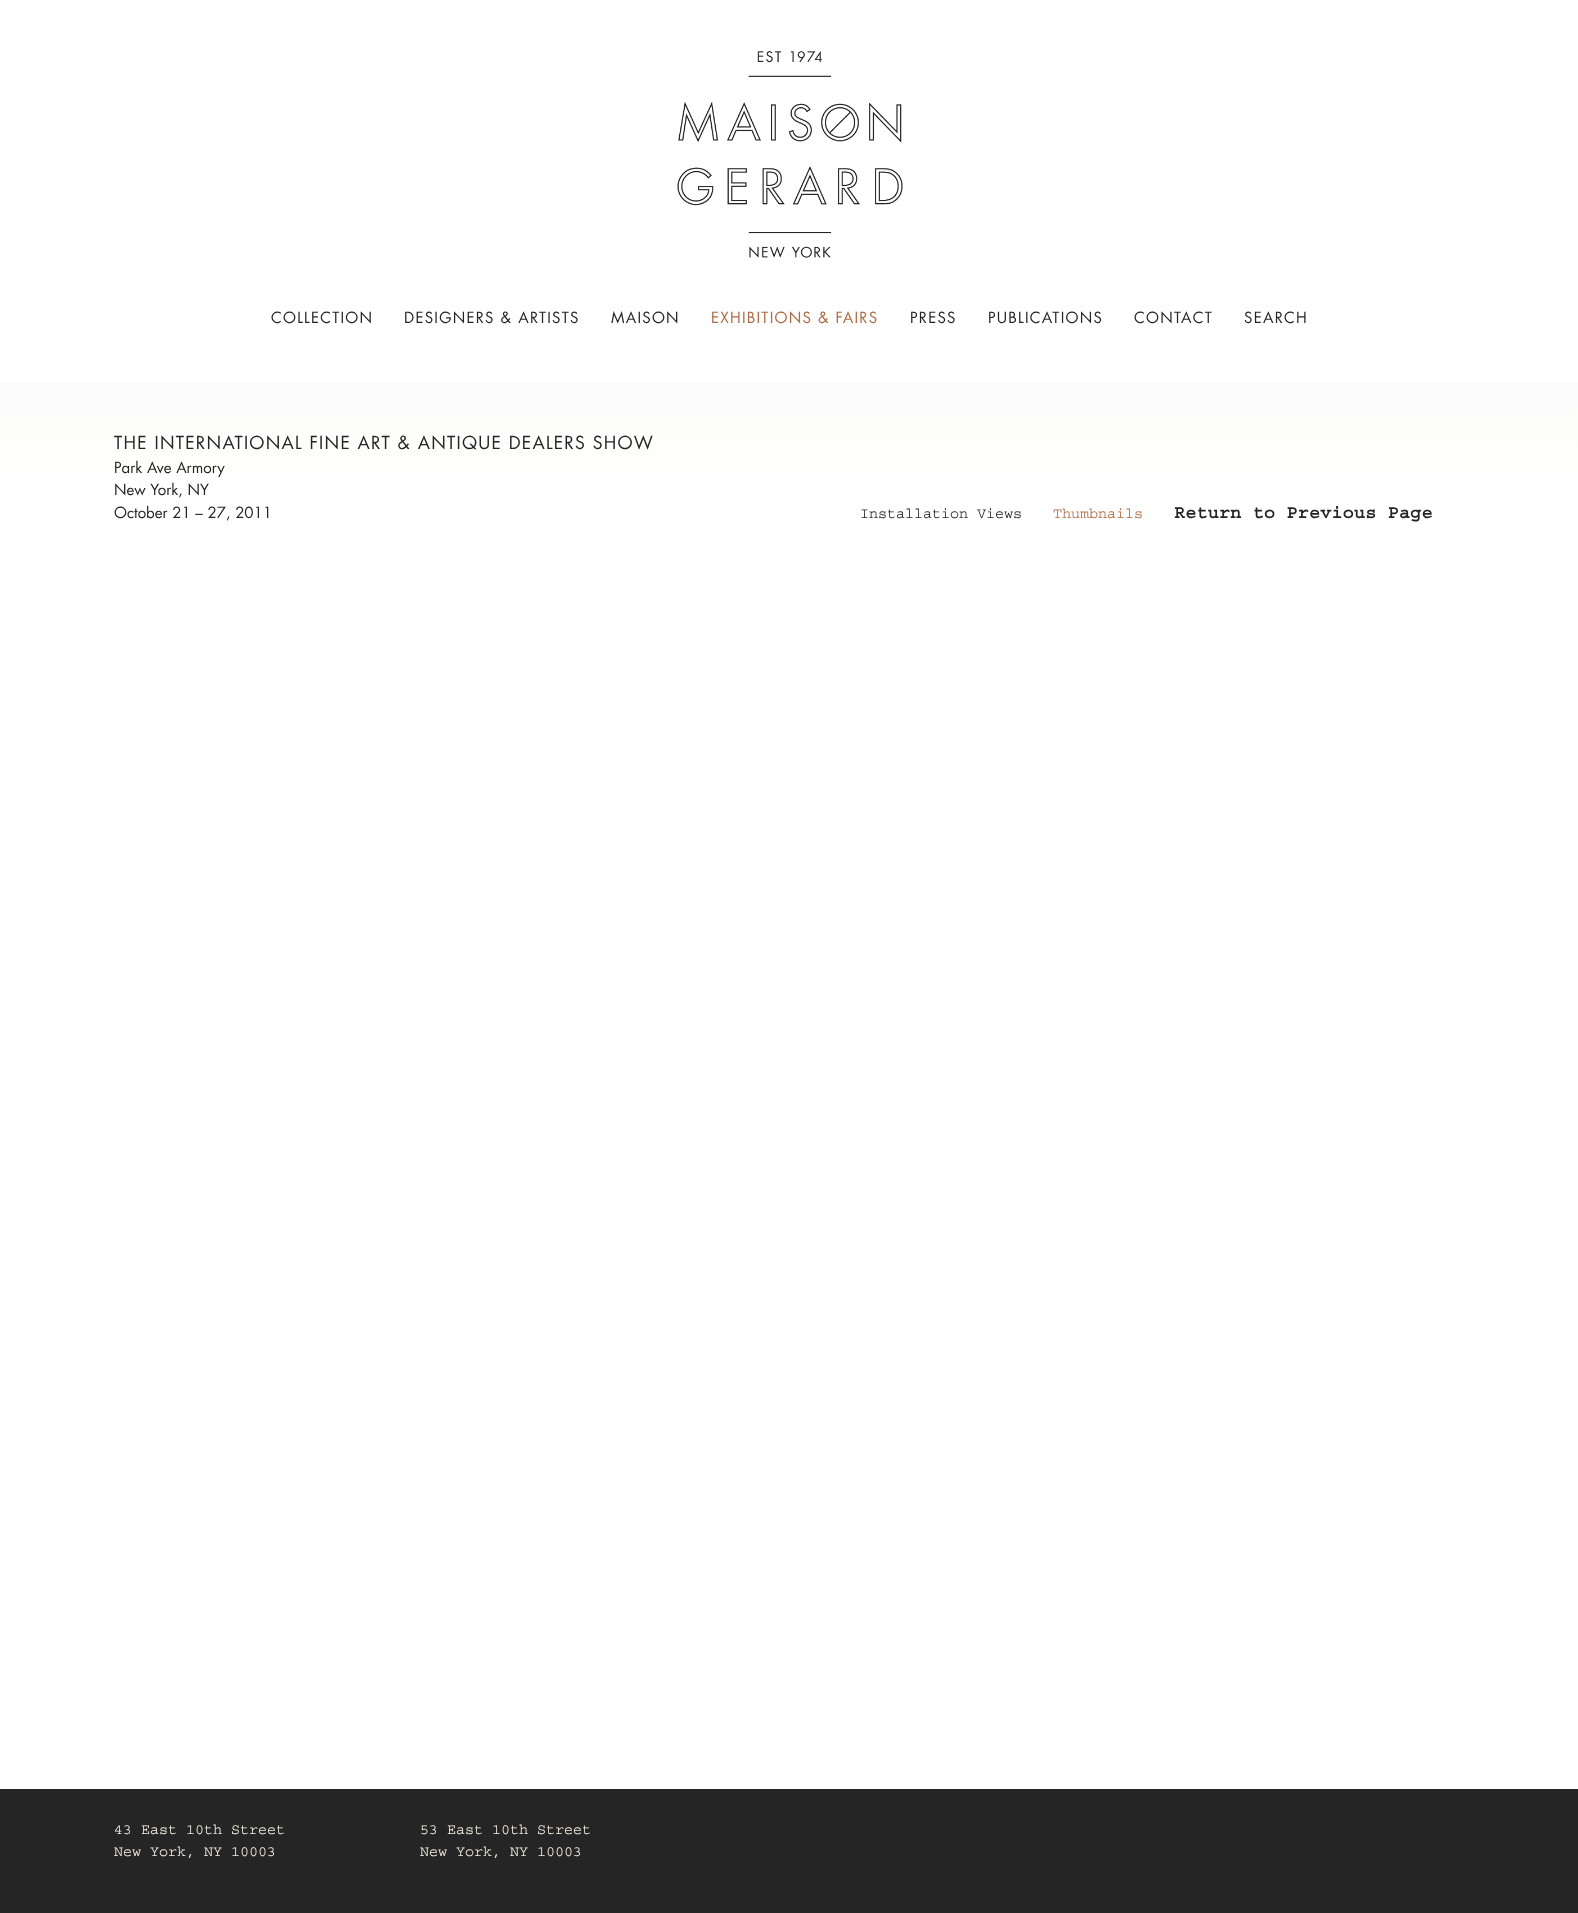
async function draw(canvas) {
  canvas.width = 1578
  canvas.height = 1913
  const ctx = canvas.getContext('2d')
  ctx.miterLimit = 4
  ctx.fontKerning = 'normal'
  async function loadImage(src) {
    const img = new Image()
    img.src = src
    await img.decode()
    return img
  }
  let gradient

  ctx.fillStyle = '#fff'
  ctx.fillRect(0, 0, 1578, 1913)
  ctx.drawImage(await loadImage('image0.png'), 677, 51, 226, 207)
  ctx.letterSpacing = '1.25px'
  ctx.font = '15px Futura'
  ctx.fillStyle = '#252525'
  ctx.fillText('COLLECTION', 271, 323)
  ctx.fillText('DESIGNERS & ARTISTS', 404, 323)
  ctx.fillText('MAISON', 611, 323)
  ctx.fillStyle = '#b26840'
  ctx.fillText('EXHIBITIONS & FAIRS', 711, 323)
  ctx.fillStyle = '#252525'
  ctx.fillText('PRESS', 910, 323)
  ctx.fillText('PUBLICATIONS', 988, 323)
  ctx.fillText('CONTACT', 1134, 323)
  ctx.fillText('SEARCH', 1244, 323)
  gradient = ctx.createLinearGradient(789, 382, 789, 541)
  gradient.addColorStop(0, '#fbfbfb')
  gradient.addColorStop(0.48, '#fefefc')
  gradient.addColorStop(1, '#fff')
  ctx.fillStyle = gradient
  ctx.fillRect(0, 383, 1578, 89)
  ctx.font = '17.5px Futura'
  ctx.fillStyle = '#252525'
  ctx.fillText('THE INTERNATIONAL FINE ART & ANTIQUE DEALERS SHOW', 114, 449)
  ctx.letterSpacing = '0px'
  ctx.font = '15px Futura'
  ctx.fillText('Park Ave Armory', 114, 473)
  ctx.fillText('New York, NY', 114, 495)
  ctx.fillText('October 21 – 27, 2011', 114, 518)
  ctx.font = '500 15px Courier'
  ctx.fillText('Installation Views', 860, 518)
  ctx.fillStyle = '#b26840'
  ctx.fillText('Thumbnails', 1053, 518)
  ctx.font = 'bold 18.75px Courier'
  ctx.fillStyle = '#252525'
  ctx.fillText('Return to Previous Page', 1174, 518)
  ctx.fillRect(0, 1789, 1578, 124)
  ctx.font = '500 15px Courier'
  ctx.fillStyle = '#f4eee2'
  ctx.fillText('43 East 10th Street', 114, 1834)
  ctx.fillText('New York, NY 10003', 114, 1856)
  ctx.fillText('53 East 10th Street', 420, 1834)
  ctx.fillText('New York, NY 10003', 420, 1856)
}

draw(document.querySelector('canvas'))
